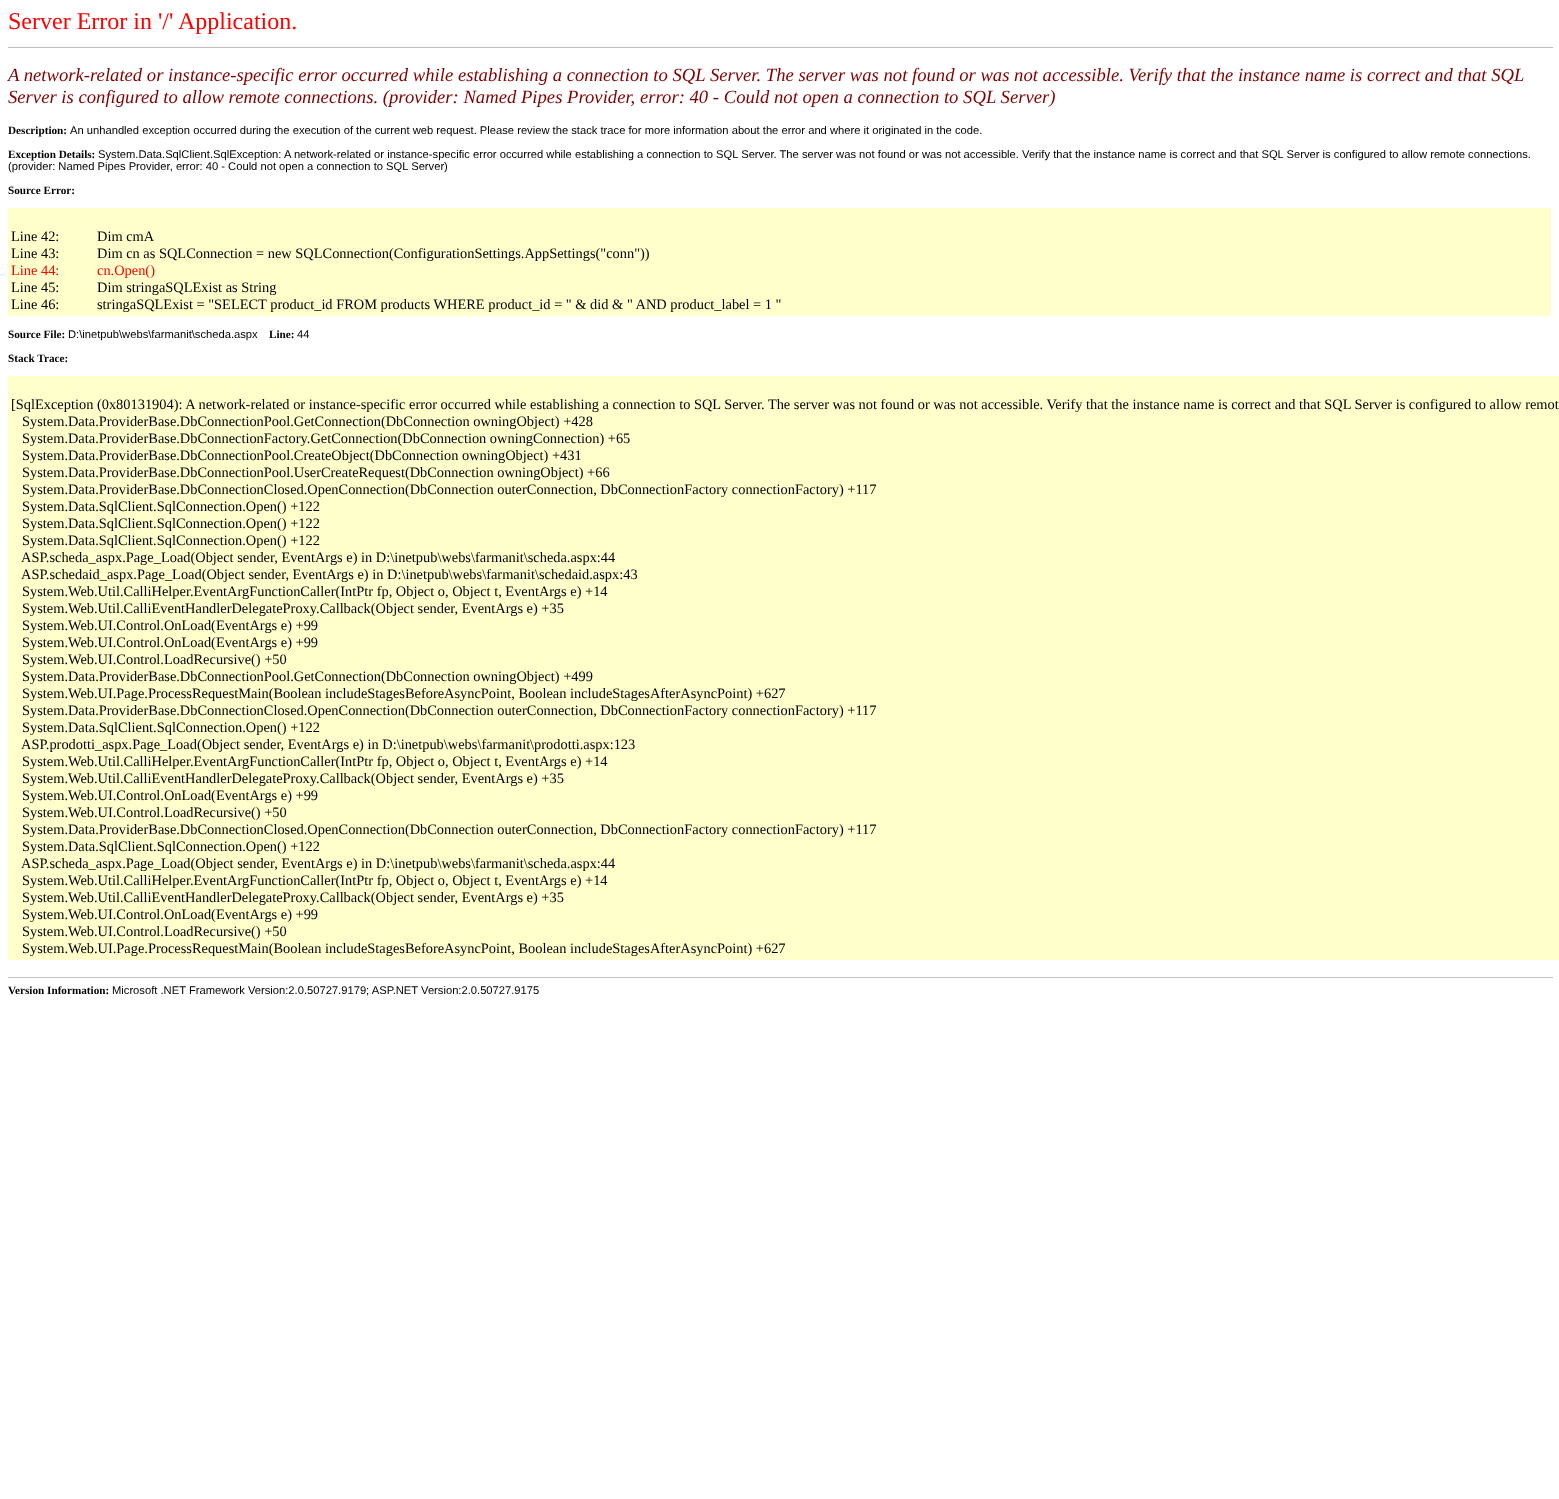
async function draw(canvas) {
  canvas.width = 1559
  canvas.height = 1499
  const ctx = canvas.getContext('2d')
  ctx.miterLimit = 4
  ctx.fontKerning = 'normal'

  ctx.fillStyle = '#fff'
  ctx.fillRect(0, 0, 1559, 1499)
  ctx.font = '24px Liberation Serif'
  ctx.fillStyle = '#f00'
  ctx.fillText('Server Error in \'/\' Application.', 8, 29)
  ctx.fillStyle = '#c0c0c0'
  ctx.fillRect(8, 47, 1545, 1)
  ctx.font = 'italic 18.67px Liberation Serif'
  ctx.fillStyle = '#800000'
  ctx.fillText('A network-related or instance-specific error occurred while establishing a connection to SQL Server. The server was not found or was not accessible. Verify that the instance name is correct and that SQL', 8, 81)
  ctx.fillText('Server is configured to allow remote connections. (provider: Named Pipes Provider, error: 40 - Could not open a connection to SQL Server)', 8, 103)
  ctx.font = 'bold 11.2px Liberation Serif'
  ctx.fillStyle = '#000'
  ctx.fillText('Description:', 8, 134)
  ctx.font = '11.2px Liberation Sans'
  ctx.fillText('An unhandled exception occurred during the execution of the current web request. Please review the stack trace for more information about the error and where it originated in the code.', 70, 134)
  ctx.font = 'bold 11.2px Liberation Serif'
  ctx.fillText('Exception Details:', 8, 158)
  ctx.font = '11.2px Liberation Sans'
  ctx.fillText('System.Data.SqlClient.SqlException: A network-related or instance-specific error occurred while establishing a connection to SQL Server. The server was not found or was not accessible. Verify that the instance name is correct and that SQL Server is configured to allow remote connections.', 98, 158)
  ctx.fillText('(provider: Named Pipes Provider, error: 40 - Could not open a connection to SQL Server)', 8, 170)
  ctx.font = 'bold 11.2px Liberation Serif'
  ctx.fillText('Source Error:', 8, 194)
  ctx.fillStyle = '#ffc'
  ctx.fillRect(8, 208, 1543, 108)
  ctx.font = '14.4px Liberation Serif'
  ctx.fillStyle = '#000'
  ctx.fillText('Line 42:', 11, 241)
  ctx.fillText('Dim cmA', 97, 241)
  ctx.fillText('Line 43:', 11, 258)
  ctx.fillText('Dim cn as SQLConnection = new SQLConnection(ConfigurationSettings.AppSettings("conn"))', 97, 258)
  ctx.fillStyle = '#f00'
  ctx.fillText('Line 44:', 11, 275)
  ctx.fillText('cn.Open()', 97, 275)
  ctx.fillStyle = '#000'
  ctx.fillText('Line 45:', 11, 292)
  ctx.fillText('Dim stringaSQLExist as String', 97, 292)
  ctx.fillText('Line 46:', 11, 309)
  ctx.fillText('stringaSQLExist = "SELECT product_id FROM products WHERE product_id = " & did & " AND product_label = 1 "', 97, 309)
  ctx.font = 'bold 11.2px Liberation Serif'
  ctx.fillText('Source File:', 8, 338)
  ctx.font = '11.2px Liberation Sans'
  ctx.fillText('D:\\inetpub\\webs\\farmanit\\scheda.aspx', 68, 338)
  ctx.font = 'bold 11.2px Liberation Serif'
  ctx.fillText('Line:', 269, 338)
  ctx.font = '11.2px Liberation Sans'
  ctx.fillText('44', 297, 338)
  ctx.font = 'bold 11.2px Liberation Serif'
  ctx.fillText('Stack Trace:', 8, 362)
  ctx.fillStyle = '#ffc'
  ctx.fillRect(8, 376, 1551, 584)
  ctx.font = '14.4px Liberation Serif'
  ctx.fillStyle = '#000'
  ctx.fillText('[SqlException (0x80131904): A network-related or instance-specific error occurred while establishing a connection to SQL Server. The server was not found or was not accessible. Verify that the instance name is correct and that SQL Server is configured to allow remot', 11, 409)
  ctx.fillText('System.Data.ProviderBase.DbConnectionPool.GetConnection(DbConnection owningObject) +428', 22, 426)
  ctx.fillText('System.Data.ProviderBase.DbConnectionFactory.GetConnection(DbConnection owningConnection) +65', 22, 443)
  ctx.fillText('System.Data.ProviderBase.DbConnectionPool.CreateObject(DbConnection owningObject) +431', 22, 460)
  ctx.fillText('System.Data.ProviderBase.DbConnectionPool.UserCreateRequest(DbConnection owningObject) +66', 22, 477)
  ctx.fillText('System.Data.ProviderBase.DbConnectionClosed.OpenConnection(DbConnection outerConnection, DbConnectionFactory connectionFactory) +117', 22, 494)
  ctx.fillText('System.Data.SqlClient.SqlConnection.Open() +122', 22, 511)
  ctx.fillText('System.Data.SqlClient.SqlConnection.Open() +122', 22, 528)
  ctx.fillText('System.Data.SqlClient.SqlConnection.Open() +122', 22, 545)
  ctx.fillText('ASP.scheda_aspx.Page_Load(Object sender, EventArgs e) in D:\\inetpub\\webs\\farmanit\\scheda.aspx:44', 21, 562)
  ctx.fillText('ASP.schedaid_aspx.Page_Load(Object sender, EventArgs e) in D:\\inetpub\\webs\\farmanit\\schedaid.aspx:43', 21, 579)
  ctx.fillText('System.Web.Util.CalliHelper.EventArgFunctionCaller(IntPtr fp, Object o, Object t, EventArgs e) +14', 22, 596)
  ctx.fillText('System.Web.Util.CalliEventHandlerDelegateProxy.Callback(Object sender, EventArgs e) +35', 22, 613)
  ctx.fillText('System.Web.UI.Control.OnLoad(EventArgs e) +99', 22, 630)
  ctx.fillText('System.Web.UI.Control.OnLoad(EventArgs e) +99', 22, 647)
  ctx.fillText('System.Web.UI.Control.LoadRecursive() +50', 22, 664)
  ctx.fillText('System.Data.ProviderBase.DbConnectionPool.GetConnection(DbConnection owningObject) +499', 22, 681)
  ctx.fillText('System.Web.UI.Page.ProcessRequestMain(Boolean includeStagesBeforeAsyncPoint, Boolean includeStagesAfterAsyncPoint) +627', 22, 698)
  ctx.fillText('System.Data.ProviderBase.DbConnectionClosed.OpenConnection(DbConnection outerConnection, DbConnectionFactory connectionFactory) +117', 22, 715)
  ctx.fillText('System.Data.SqlClient.SqlConnection.Open() +122', 22, 732)
  ctx.fillText('ASP.prodotti_aspx.Page_Load(Object sender, EventArgs e) in D:\\inetpub\\webs\\farmanit\\prodotti.aspx:123', 21, 749)
  ctx.fillText('System.Web.Util.CalliHelper.EventArgFunctionCaller(IntPtr fp, Object o, Object t, EventArgs e) +14', 22, 766)
  ctx.fillText('System.Web.Util.CalliEventHandlerDelegateProxy.Callback(Object sender, EventArgs e) +35', 22, 783)
  ctx.fillText('System.Web.UI.Control.OnLoad(EventArgs e) +99', 22, 800)
  ctx.fillText('System.Web.UI.Control.LoadRecursive() +50', 22, 817)
  ctx.fillText('System.Data.ProviderBase.DbConnectionClosed.OpenConnection(DbConnection outerConnection, DbConnectionFactory connectionFactory) +117', 22, 834)
  ctx.fillText('System.Data.SqlClient.SqlConnection.Open() +122', 22, 851)
  ctx.fillText('ASP.scheda_aspx.Page_Load(Object sender, EventArgs e) in D:\\inetpub\\webs\\farmanit\\scheda.aspx:44', 21, 868)
  ctx.fillText('System.Web.Util.CalliHelper.EventArgFunctionCaller(IntPtr fp, Object o, Object t, EventArgs e) +14', 22, 885)
  ctx.fillText('System.Web.Util.CalliEventHandlerDelegateProxy.Callback(Object sender, EventArgs e) +35', 22, 902)
  ctx.fillText('System.Web.UI.Control.OnLoad(EventArgs e) +99', 22, 919)
  ctx.fillText('System.Web.UI.Control.LoadRecursive() +50', 22, 936)
  ctx.fillText('System.Web.UI.Page.ProcessRequestMain(Boolean includeStagesBeforeAsyncPoint, Boolean includeStagesAfterAsyncPoint) +627', 22, 953)
  ctx.fillStyle = '#c0c0c0'
  ctx.fillRect(8, 977, 1545, 1)
  ctx.font = 'bold 11.2px Liberation Serif'
  ctx.fillStyle = '#000'
  ctx.fillText('Version Information:', 8, 994)
  ctx.font = '11.2px Liberation Sans'
  ctx.fillText('Microsoft .NET Framework Version:2.0.50727.9179; ASP.NET Version:2.0.50727.9175', 112, 994)
}

draw(document.querySelector('canvas'))
